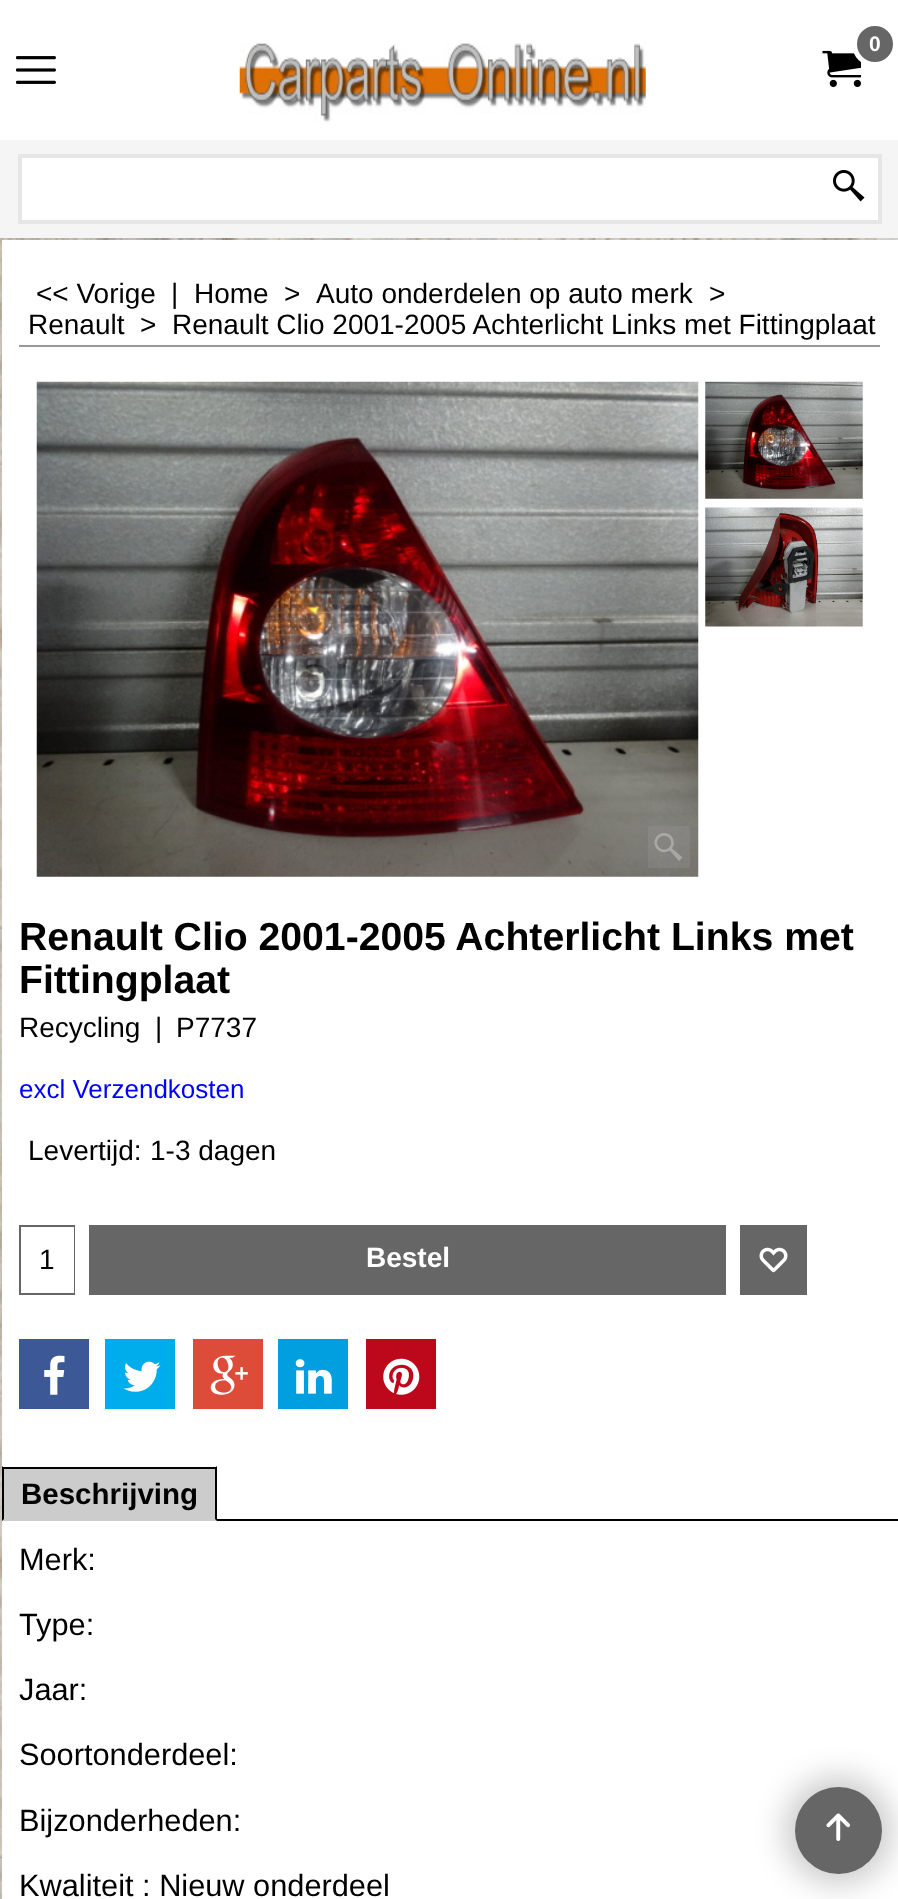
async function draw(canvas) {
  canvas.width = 898
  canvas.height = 1899
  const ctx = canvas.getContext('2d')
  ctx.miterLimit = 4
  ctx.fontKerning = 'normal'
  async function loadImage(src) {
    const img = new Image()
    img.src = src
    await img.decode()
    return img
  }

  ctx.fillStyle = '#fff'
  ctx.fillRect(0, 0, 898, 1899)
  ctx.drawImage(await loadImage('image0.png'), 0, 238, 898, 1661)
  ctx.drawImage(await loadImage('image1.png'), 16, 56, 40, 28)
  ctx.drawImage(await loadImage('image2.png'), 239, 43, 407, 80)
  ctx.drawImage(await loadImage('image3.png'), 822, 50, 39, 37)
  ctx.fillStyle = '#666'
  ctx.beginPath()
  ctx.arc(875, 44, 20.5, 0, 2 * Math.PI)
  ctx.fill()
  ctx.strokeStyle = '#fff'
  ctx.lineWidth = 5
  ctx.stroke()
  ctx.font = 'bold 21px Liberation Sans'
  ctx.fillStyle = '#fff'
  ctx.fillText('0', 869, 51)
  ctx.fillStyle = '#f5f5f6'
  ctx.fillRect(0, 140, 898, 98)
  ctx.fillStyle = '#fff'
  ctx.beginPath()
  ctx.rect(20, 156, 860, 66)
  ctx.fill()
  ctx.strokeStyle = '#e6e6e6'
  ctx.lineWidth = 4
  ctx.stroke()
  ctx.drawImage(await loadImage('image4.png'), 833, 170, 32, 32)
  ctx.fillRect(2, 240, 896, 1659)
  ctx.fillStyle = '#999'
  ctx.fillRect(19, 345, 861, 2)
  ctx.font = '28px Liberation Sans'
  ctx.fillStyle = '#000'
  ctx.fillText('<< Vorige', 36, 303)
  ctx.fillText('|', 171, 303)
  ctx.fillText('Home', 194, 303)
  ctx.fillText('>', 284, 303)
  ctx.fillText('Auto onderdelen op auto merk', 316, 303)
  ctx.fillText('>', 709, 303)
  ctx.fillText('Renault', 28, 334)
  ctx.fillText('>', 140, 334)
  ctx.fillText('Renault Clio 2001-2005 Achterlicht Links met Fittingplaat', 172, 334)
  ctx.drawImage(await loadImage('image5.png'), 36, 381, 663, 496)
  ctx.fillStyle = '#9999994d'
  ctx.fillRect(648, 826, 42, 42)
  ctx.drawImage(await loadImage('image6.png'), 654, 833, 29, 28)
  ctx.drawImage(await loadImage('image7.png'), 705, 381, 158, 118)
  ctx.drawImage(await loadImage('image8.png'), 705, 507, 158, 120)
  ctx.font = 'bold 39.2px Liberation Sans'
  ctx.fillStyle = '#000'
  ctx.fillText('Renault Clio 2001-2005 Achterlicht Links met', 19, 950)
  ctx.fillText('Fittingplaat', 19, 993)
  ctx.font = '28px Liberation Sans'
  ctx.fillText('Recycling', 19, 1037)
  ctx.fillText('|', 155, 1037)
  ctx.fillText('P7737', 176, 1037)
  ctx.font = '26px Liberation Sans'
  ctx.fillStyle = '#00f'
  ctx.fillText('excl Verzendkosten', 19, 1098)
  ctx.font = '28px Liberation Sans'
  ctx.fillStyle = '#000'
  ctx.fillText('Levertijd:', 28, 1160)
  ctx.fillText('1-3 dagen', 150, 1160)
  ctx.fillStyle = '#666'
  ctx.fillRect(19, 1225, 56, 70)
  ctx.fillStyle = '#fff'
  ctx.fillRect(21, 1227, 53, 66)
  ctx.fillStyle = '#000'
  ctx.fillText('1', 39, 1269)
  ctx.fillStyle = '#666'
  ctx.fillRect(89, 1225, 637, 70)
  ctx.font = 'bold 28px Liberation Sans'
  ctx.fillStyle = '#fff'
  ctx.fillText('Bestel', 366, 1267)
  ctx.fillStyle = '#666'
  ctx.fillRect(740, 1225, 67, 70)
  ctx.drawImage(await loadImage('image9.png'), 759, 1247, 29, 26)
  ctx.fillStyle = '#3c5897'
  ctx.fillRect(19, 1339, 70, 70)
  ctx.drawImage(await loadImage('image10.png'), 44, 1355, 21, 40)
  ctx.fillStyle = '#00adec'
  ctx.fillRect(105, 1339, 70, 70)
  ctx.drawImage(await loadImage('image11.png'), 123, 1361, 38, 31)
  ctx.fillStyle = '#dd4c39'
  ctx.fillRect(193, 1339, 70, 70)
  ctx.drawImage(await loadImage('image12.png'), 210, 1355, 38, 40)
  ctx.fillStyle = '#019fe0'
  ctx.fillRect(278, 1339, 70, 70)
  ctx.drawImage(await loadImage('image13.png'), 295, 1359, 37, 35)
  ctx.fillStyle = '#bd081c'
  ctx.fillRect(366, 1339, 70, 70)
  ctx.drawImage(await loadImage('image14.png'), 383, 1358, 37, 37)
  ctx.fillStyle = '#ccc'
  ctx.fillRect(2, 1469, 215, 52)
  ctx.fillStyle = '#000'
  ctx.fillRect(2, 1467, 215, 2)
  ctx.beginPath()
  ctx.moveTo(217, 1466)
  ctx.lineTo(217, 1521)
  ctx.lineTo(215, 1519)
  ctx.lineTo(215, 1468)
  ctx.closePath()
  ctx.fill()
  ctx.beginPath()
  ctx.moveTo(2, 1521)
  ctx.lineTo(2, 1466)
  ctx.lineTo(4, 1468)
  ctx.lineTo(4, 1519)
  ctx.closePath()
  ctx.fill()
  ctx.font = 'bold 29.5px Liberation Sans'
  ctx.fillText('Beschrijving', 21, 1504)
  ctx.fillRect(217, 1519, 681, 2)
  ctx.font = '30.75px Liberation Sans'
  ctx.fillText('Merk:', 19, 1570)
  ctx.fillText('Type:', 19, 1635)
  ctx.fillText('Jaar:', 19, 1700)
  ctx.fillText('Soortonderdeel:', 19, 1765)
  ctx.fillText('Bijzonderheden:', 19, 1831)
  ctx.fillText('Kwaliteit : Nieuw onderdeel', 19, 1896)
  ctx.fillStyle = '#00000033'
  ctx.filter = 'blur(15px)'
  ctx.beginPath()
  ctx.roundRect(784, 1776, 109, 109, 54.5)
  ctx.fill()
  ctx.filter = 'none'
  ctx.fillStyle = '#666'
  ctx.beginPath()
  ctx.arc(838.5, 1830.5, 43.5, 0, 2 * Math.PI)
  ctx.fill()
  ctx.drawImage(await loadImage('image15.png'), 826, 1813, 24, 28)
}

draw(document.querySelector('canvas'))
